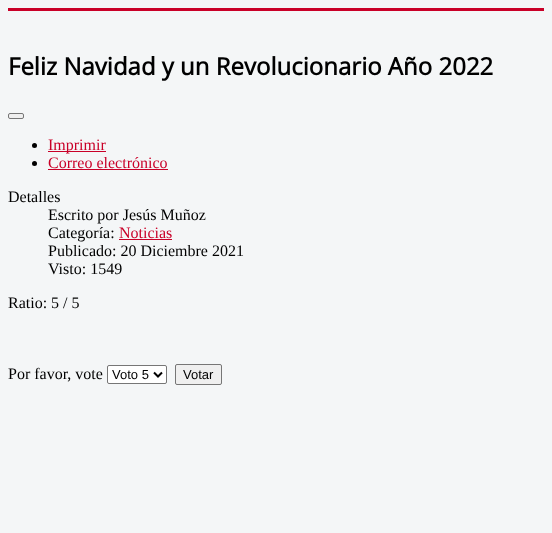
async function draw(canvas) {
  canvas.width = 552
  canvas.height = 533
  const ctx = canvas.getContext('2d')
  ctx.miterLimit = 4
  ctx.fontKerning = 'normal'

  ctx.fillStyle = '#f4f6f7'
  ctx.fillRect(0, 0, 552, 533)
  ctx.fillStyle = '#c90028'
  ctx.fillRect(8, 8, 536, 3)
  ctx.font = 'bold 24px Open Sans'
  ctx.fillStyle = '#000'
  ctx.fillText('Feliz Navidad y un Revolucionario Año 2022', 8, 75)
  ctx.fillStyle = '#efefef'
  ctx.beginPath()
  ctx.roundRect(8.5, 113.5, 15, 5, 1.5)
  ctx.fill()
  ctx.strokeStyle = '#767676'
  ctx.stroke()
  ctx.fillStyle = '#000'
  ctx.beginPath()
  ctx.arc(34.5, 145.5, 2.5, 0, 2 * Math.PI)
  ctx.fill()
  ctx.fillStyle = '#c90028'
  ctx.fillRect(48, 151, 58, 1)
  ctx.font = '16px Liberation Serif'
  ctx.fillText('Imprimir', 48, 150)
  ctx.fillStyle = '#000'
  ctx.beginPath()
  ctx.arc(34.5, 163.5, 2.5, 0, 2 * Math.PI)
  ctx.fill()
  ctx.fillStyle = '#c90028'
  ctx.fillText('Correo electrónico', 48, 168)
  ctx.fillRect(48, 169, 120, 1)
  ctx.fillStyle = '#000'
  ctx.fillText('Detalles', 8, 202)
  ctx.fillText('Escrito por Jesús Muñoz', 48, 220)
  ctx.fillText('Categoría:', 48, 238)
  ctx.fillStyle = '#c90028'
  ctx.fillText('Noticias', 119, 238)
  ctx.fillRect(119, 239, 53, 1)
  ctx.fillStyle = '#000'
  ctx.fillText('Publicado: 20 Diciembre 2021', 48, 256)
  ctx.fillText('Visto: 1549', 48, 274)
  ctx.fillText('Ratio: 5 / 5', 8, 308)
  ctx.fillText('Por favor, vote', 8, 379)
  ctx.fillStyle = '#fff'
  ctx.beginPath()
  ctx.roundRect(107.5, 365.5, 59, 18, 1.5)
  ctx.fill()
  ctx.stroke()
  ctx.beginPath()
  ctx.moveTo(154, 372.5)
  ctx.lineTo(158, 376.5)
  ctx.lineTo(162, 372.5)
  ctx.strokeStyle = '#000'
  ctx.lineWidth = 2
  ctx.stroke()
  ctx.font = '13px Liberation Sans'
  ctx.fillStyle = '#000'
  ctx.fillText('Voto 5', 112, 379)
  ctx.fillStyle = '#efefef'
  ctx.beginPath()
  ctx.roundRect(175.5, 364.5, 46, 20, 1.5)
  ctx.fill()
  ctx.strokeStyle = '#767676'
  ctx.lineWidth = 1
  ctx.stroke()
  ctx.fillStyle = '#000'
  ctx.fillText('Votar', 183, 379)
}

draw(document.querySelector('canvas'))
